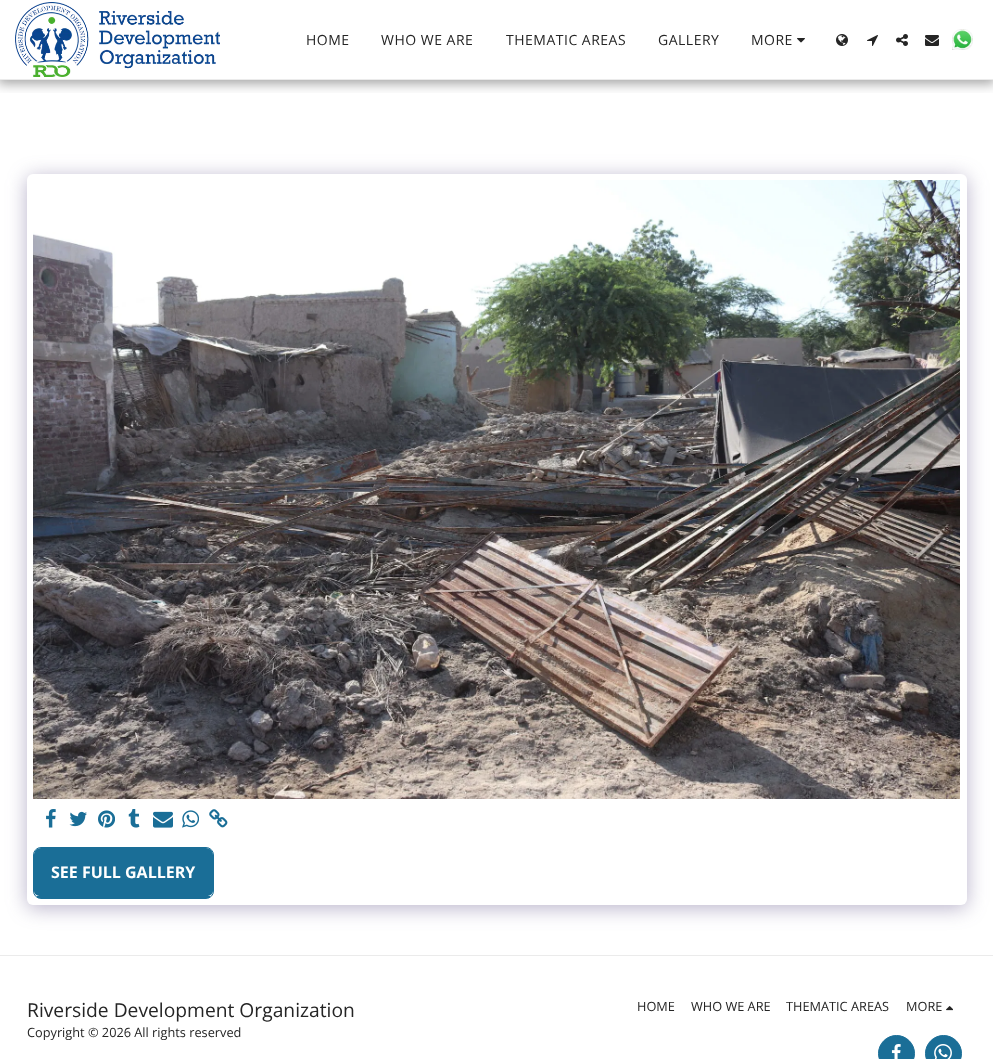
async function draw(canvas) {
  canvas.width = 993
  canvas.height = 1059
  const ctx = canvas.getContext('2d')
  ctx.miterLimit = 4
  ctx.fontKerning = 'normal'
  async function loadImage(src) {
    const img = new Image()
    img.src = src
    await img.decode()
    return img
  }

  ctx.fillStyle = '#fff'
  ctx.fillRect(0, 0, 993, 1059)
  ctx.save()
  ctx.beginPath()
  ctx.rect(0, 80, 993, 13)
  ctx.clip()
  ctx.fillStyle = '#00000059'
  ctx.filter = 'blur(6px)'
  ctx.beginPath()
  ctx.rect(-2, 0, 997, 84)
  ctx.fill()
  ctx.filter = 'none'
  ctx.restore()
  ctx.fillStyle = '#ebebeb'
  ctx.fillRect(0, 79, 993, 1)
  ctx.drawImage(await loadImage('image0.png'), 15, 2, 205, 75)
  ctx.letterSpacing = '0.5px'
  ctx.font = '14px Open Sans'
  ctx.fillStyle = '#252525'
  ctx.fillText('HOME', 306, 45)
  ctx.fillText('WHO WE ARE', 381, 45)
  ctx.fillText('THEMATIC AREAS', 506, 45)
  ctx.fillText('GALLERY', 658, 45)
  ctx.fillText('MORE', 751, 45)
  ctx.drawImage(await loadImage('image1.png'), 797, 38, 8, 5)
  ctx.drawImage(await loadImage('image2.png'), 836, 34, 12, 12)
  ctx.drawImage(await loadImage('image3.png'), 867, 35, 11, 11)
  ctx.drawImage(await loadImage('image4.png'), 896, 34, 12, 12)
  ctx.drawImage(await loadImage('image5.png'), 925, 35, 14, 11)
  ctx.drawImage(await loadImage('image6.png'), 952, 29, 21, 21)
  ctx.fillStyle = '#4d3f7a66'
  ctx.filter = 'blur(10px)'
  ctx.beginPath()
  ctx.roundRect(27, 177, 940, 731, 6)
  ctx.fill()
  ctx.filter = 'none'
  ctx.fillStyle = '#fff'
  ctx.beginPath()
  ctx.roundRect(27, 174, 940, 731, 6)
  ctx.fill()
  ctx.drawImage(await loadImage('image7.png'), 33, 180, 927, 619)
  ctx.drawImage(await loadImage('image8.png'), 46, 809, 10, 19)
  ctx.drawImage(await loadImage('image9.png'), 69, 811, 18, 16)
  ctx.drawImage(await loadImage('image10.png'), 98, 810, 17, 18)
  ctx.drawImage(await loadImage('image11.png'), 128, 809, 12, 19)
  ctx.drawImage(await loadImage('image12.png'), 153, 811, 20, 17)
  ctx.drawImage(await loadImage('image13.png'), 182, 810, 17, 18)
  ctx.drawImage(await loadImage('image14.png'), 209, 809, 19, 19)
  ctx.fillStyle = '#1a6e97'
  ctx.beginPath()
  ctx.moveTo(41, 848)
  ctx.lineTo(206, 848)
  ctx.bezierCurveTo(210, 848, 213, 851, 213, 855)
  ctx.lineTo(213, 891)
  ctx.bezierCurveTo(213, 894, 210, 896, 206, 896)
  ctx.lineTo(41, 896)
  ctx.bezierCurveTo(37, 896, 34, 894, 34, 891)
  ctx.lineTo(34, 855)
  ctx.bezierCurveTo(34, 851, 37, 848, 41, 848)
  ctx.closePath()
  ctx.fill()
  ctx.beginPath()
  ctx.roundRect(33.5, 847.5, 180, 51, 7.5)
  ctx.strokeStyle = '#1a6e97'
  ctx.stroke()
  ctx.fillRect(37, 896, 173, 2)
  ctx.letterSpacing = '0px'
  ctx.font = 'bold 16px Open Sans'
  ctx.fillStyle = '#fff'
  ctx.fillText('SEE FULL GALLERY', 51, 878)
  ctx.fillStyle = '#ebebeb'
  ctx.fillRect(0, 955, 993, 1)
  ctx.font = '19.25px Open Sans'
  ctx.fillStyle = '#252525'
  ctx.fillText('Riverside Development Organization', 27, 1017)
  ctx.font = '12.75px Open Sans'
  ctx.fillText('Copyright © 2026 All rights reserved', 27, 1037)
  ctx.fillText('HOME', 637, 1011)
  ctx.fillText('WHO WE ARE', 691, 1011)
  ctx.fillText('THEMATIC AREAS', 786, 1011)
  ctx.fillText('MORE', 906, 1011)
  ctx.drawImage(await loadImage('image15.png'), 946, 1006, 7, 5)
  ctx.fillStyle = '#1a6e97'
  ctx.beginPath()
  ctx.arc(896.5, 1053.5, 18, 0, 2 * Math.PI)
  ctx.fill()
  ctx.stroke()
  ctx.drawImage(await loadImage('image16.png'), 891, 1044, 10, 15)
  ctx.beginPath()
  ctx.arc(943.5, 1053.5, 18, 0, 2 * Math.PI)
  ctx.fill()
  ctx.stroke()
  ctx.drawImage(await loadImage('image17.png'), 934, 1044, 18, 15)
}

draw(document.querySelector('canvas'))
